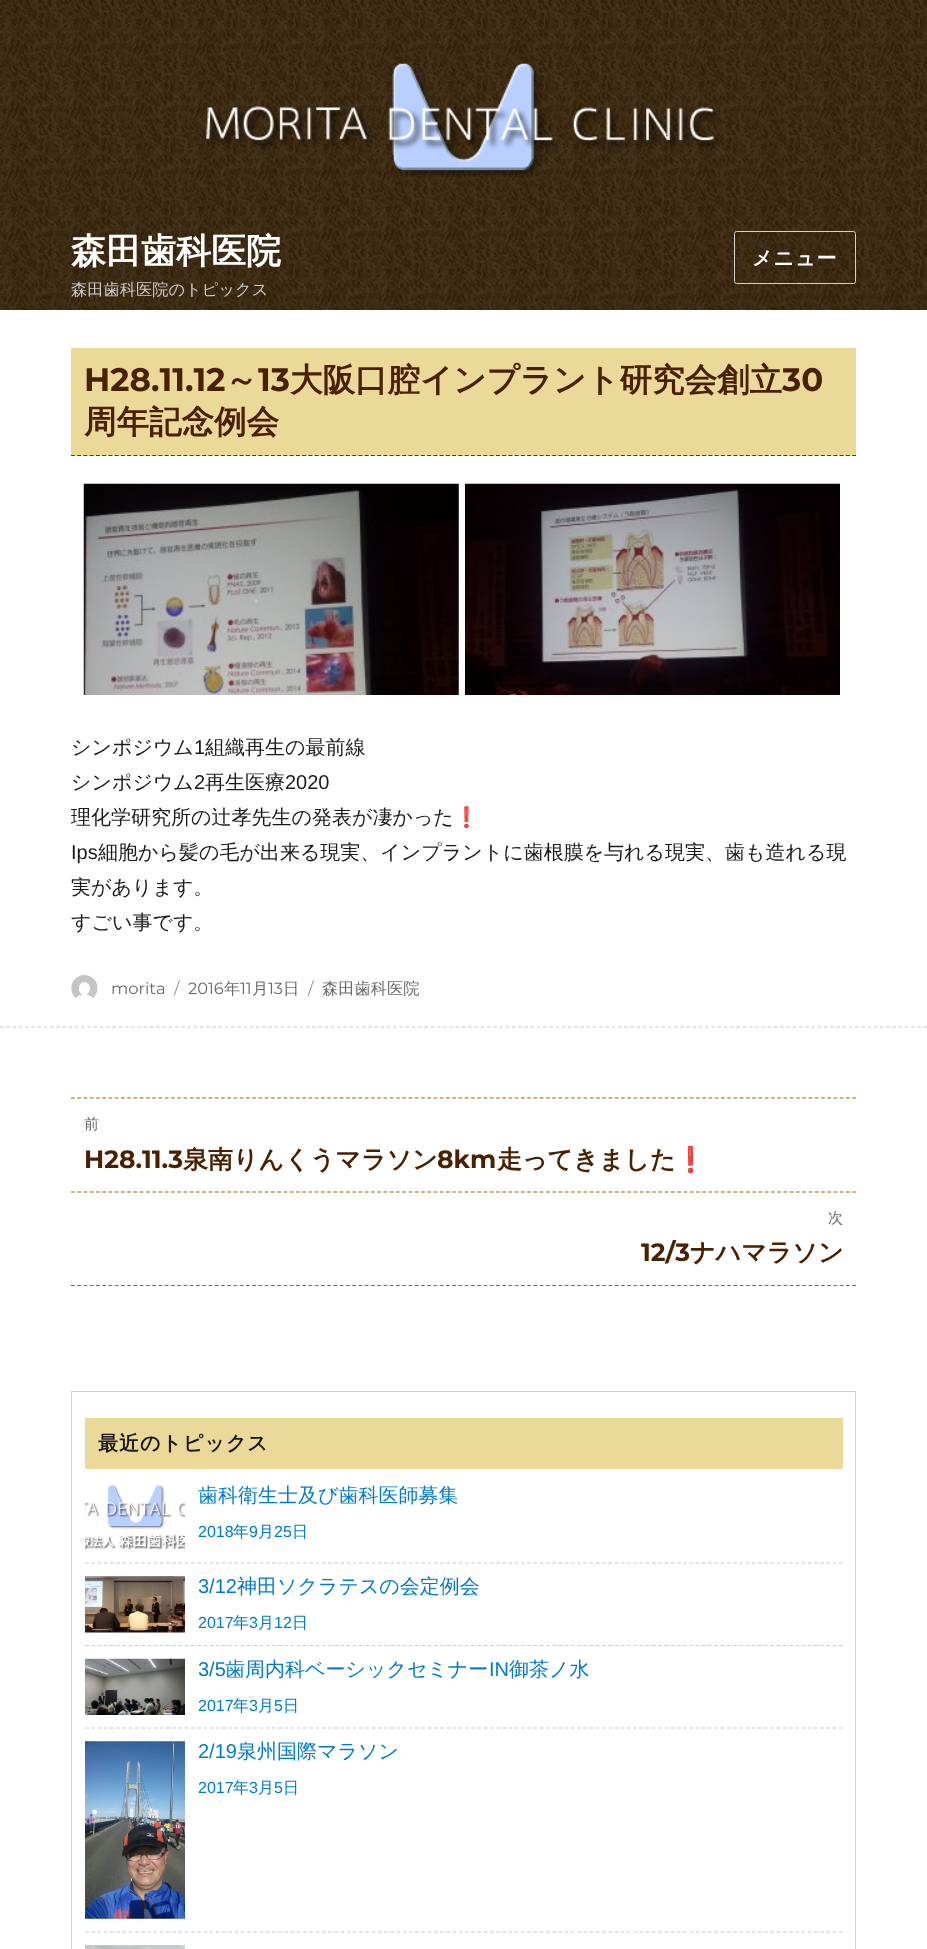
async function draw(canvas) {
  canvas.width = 927
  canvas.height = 1949
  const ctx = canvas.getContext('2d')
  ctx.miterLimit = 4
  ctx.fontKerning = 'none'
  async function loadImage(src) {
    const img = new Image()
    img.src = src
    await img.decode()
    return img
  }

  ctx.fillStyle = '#fff'
  ctx.fillRect(0, 0, 927, 1949)
  ctx.drawImage(await loadImage('image0.png'), 0, 0, 927, 310)
  ctx.drawImage(await loadImage('image1.png'), 206, 63, 514, 114)
  ctx.font = 'bold 35px WenQuanYi Zen Hei'
  ctx.fillText('森田歯科医院', 71, 263)
  ctx.font = '500 16.25px WenQuanYi Zen Hei'
  ctx.fillStyle = '#ccc'
  ctx.fillText('森田歯科医院のトピックス', 71, 295)
  ctx.beginPath()
  ctx.roundRect(734.5, 231.5, 121, 52, 2)
  ctx.strokeStyle = '#d1d1d1'
  ctx.stroke()
  ctx.letterSpacing = '1px'
  ctx.font = 'bold 20px WenQuanYi Zen Hei'
  ctx.fillStyle = '#fff'
  ctx.fillText('メニュー', 752, 265)
  ctx.beginPath()
  ctx.moveTo(0, 1027)
  ctx.lineTo(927.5, 1027)
  ctx.strokeStyle = '#ccc'
  ctx.lineWidth = 1.2
  ctx.setLineDash([3.75, 2.49])
  ctx.stroke()
  ctx.fillStyle = '#ebd99a'
  ctx.fillRect(71, 348, 785, 108)
  ctx.beginPath()
  ctx.moveTo(71, 455.5)
  ctx.lineTo(856, 455.5)
  ctx.strokeStyle = '#630'
  ctx.setLineDash([3.75, 2.5])
  ctx.stroke()
  ctx.letterSpacing = '0px'
  ctx.font = 'bold 32.5px Montserrat'
  ctx.fillStyle = '#4a2100'
  ctx.fillText('H28.11.12', 84, 391)
  ctx.font = 'bold 32.5px WenQuanYi Zen Hei'
  ctx.fillText('～', 225, 391)
  ctx.font = 'bold 32.5px Montserrat'
  ctx.fillText('13', 258, 391)
  ctx.font = 'bold 32.5px WenQuanYi Zen Hei'
  ctx.fillText('大阪口腔インプラント研究会創立', 290, 391)
  ctx.font = 'bold 32.5px Montserrat'
  ctx.fillText('30', 782, 391)
  ctx.font = 'bold 32.5px WenQuanYi Zen Hei'
  ctx.fillText('周年記念例会', 84, 433)
  ctx.drawImage(await loadImage('image2.png'), 83, 483, 376, 212)
  ctx.drawImage(await loadImage('image3.png'), 465, 483, 375, 212)
  ctx.font = '500 20px WenQuanYi Zen Hei'
  ctx.fillStyle = '#1a1a1a'
  ctx.fillText('シンポジウム', 71, 754)
  ctx.font = '20px Liberation Sans'
  ctx.fillText('1', 194, 754)
  ctx.font = '500 20px WenQuanYi Zen Hei'
  ctx.fillText('組織再生の最前線', 205, 754)
  ctx.fillText('シンポジウム', 71, 789)
  ctx.font = '20px Liberation Sans'
  ctx.fillText('2', 194, 789)
  ctx.font = '500 20px WenQuanYi Zen Hei'
  ctx.fillText('再生医療', 205, 789)
  ctx.font = '20px Liberation Sans'
  ctx.fillText('2020', 285, 789)
  ctx.font = '500 20px WenQuanYi Zen Hei'
  ctx.fillText('理化学研究所の辻孝先生の発表が凄かった', 71, 824)
  ctx.font = '20px Noto Color Emoji'
  ctx.fillText('❗', 454, 824)
  ctx.font = '20px Liberation Sans'
  ctx.fillText('Ips', 71, 859)
  ctx.font = '500 20px WenQuanYi Zen Hei'
  ctx.fillText('細胞から髪の毛が出来る現実、インプラントに歯根膜を与れる現実、歯も造れる現', 98, 859)
  ctx.fillText('実があります。', 71, 894)
  ctx.fillText('すごい事です。', 71, 929)
  ctx.drawImage(await loadImage('image4.png'), 71, 975, 27, 24)
  ctx.font = '16.25px Montserrat'
  ctx.fillStyle = '#686868'
  ctx.fillText('morita', 111, 994)
  ctx.fillStyle = '#959595'
  ctx.fillText('/', 174, 994)
  ctx.fillStyle = '#686868'
  ctx.fillText('2016', 188, 994)
  ctx.font = '500 16.25px WenQuanYi Zen Hei'
  ctx.fillText('年', 224, 994)
  ctx.font = '16.25px Montserrat'
  ctx.fillText('11', 240, 994)
  ctx.font = '500 16.25px WenQuanYi Zen Hei'
  ctx.fillText('月', 252, 994)
  ctx.font = '16.25px Montserrat'
  ctx.fillText('13', 268, 994)
  ctx.font = '500 16.25px WenQuanYi Zen Hei'
  ctx.fillText('日', 283, 994)
  ctx.font = '16.25px Montserrat'
  ctx.fillStyle = '#959595'
  ctx.fillText('/', 308, 994)
  ctx.font = '500 16.25px WenQuanYi Zen Hei'
  ctx.fillStyle = '#686868'
  ctx.fillText('森田歯科医院', 322, 994)
  ctx.beginPath()
  ctx.moveTo(71, 1098)
  ctx.lineTo(856, 1098)
  ctx.strokeStyle = '#960'
  ctx.stroke()
  ctx.beginPath()
  ctx.moveTo(71, 1285.5)
  ctx.lineTo(856, 1285.5)
  ctx.stroke()
  ctx.letterSpacing = '1px'
  ctx.font = '500 15px WenQuanYi Zen Hei'
  ctx.fillText('前', 84, 1129)
  ctx.letterSpacing = '0px'
  ctx.font = 'bold 25px Montserrat'
  ctx.fillStyle = '#4a2100'
  ctx.fillText('H28.11.3', 84, 1168)
  ctx.font = 'bold 25px WenQuanYi Zen Hei'
  ctx.fillText('泉南りんくうマラソン', 183, 1168)
  ctx.font = 'bold 25px Montserrat'
  ctx.fillText('8km', 437, 1168)
  ctx.font = 'bold 25px WenQuanYi Zen Hei'
  ctx.fillText('走ってきました', 497, 1168)
  ctx.font = 'bold 25px Noto Color Emoji'
  ctx.fillText('❗', 675, 1168)
  ctx.beginPath()
  ctx.moveTo(71, 1192)
  ctx.lineTo(856, 1192)
  ctx.stroke()
  ctx.letterSpacing = '1px'
  ctx.font = '500 15px WenQuanYi Zen Hei'
  ctx.fillStyle = '#686868'
  ctx.fillText('次', 828, 1223)
  ctx.letterSpacing = '0px'
  ctx.font = 'bold 25px Montserrat'
  ctx.fillStyle = '#4a2100'
  ctx.fillText('12/3', 641, 1261)
  ctx.font = 'bold 25px WenQuanYi Zen Hei'
  ctx.fillText('ナハマラソン', 690, 1261)
  ctx.strokeStyle = '#f6d369'
  ctx.lineWidth = 1
  ctx.setLineDash([])
  ctx.strokeRect(71.5, 1391.5, 784, 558)
  ctx.fillStyle = '#ebd99a'
  ctx.fillRect(85, 1418, 758, 51)
  ctx.letterSpacing = '1px'
  ctx.font = 'bold 20px WenQuanYi Zen Hei'
  ctx.fillStyle = '#1a1a1a'
  ctx.fillText('最近のトピックス', 98, 1450)
  ctx.beginPath()
  ctx.moveTo(85, 1563)
  ctx.lineTo(842.5, 1563)
  ctx.strokeStyle = '#ccc'
  ctx.lineWidth = 1.2
  ctx.setLineDash([3.75, 2.48])
  ctx.stroke()
  ctx.drawImage(await loadImage('image5.png'), 85, 1485, 100, 65)
  ctx.letterSpacing = '0px'
  ctx.font = '500 20px WenQuanYi Zen Hei'
  ctx.fillStyle = '#007acc'
  ctx.fillText('歯科衛生士及び歯科医師募集', 198, 1502)
  ctx.font = '16px Liberation Sans'
  ctx.fillText('2018', 198, 1537)
  ctx.font = '500 16px WenQuanYi Zen Hei'
  ctx.fillText('年', 233, 1537)
  ctx.font = '16px Liberation Sans'
  ctx.fillText('9', 249, 1537)
  ctx.font = '500 16px WenQuanYi Zen Hei'
  ctx.fillText('月', 258, 1537)
  ctx.font = '16px Liberation Sans'
  ctx.fillText('25', 274, 1537)
  ctx.font = '500 16px WenQuanYi Zen Hei'
  ctx.fillText('日', 292, 1537)
  ctx.beginPath()
  ctx.moveTo(85, 1645.5)
  ctx.lineTo(842.5, 1645.5)
  ctx.stroke()
  ctx.drawImage(await loadImage('image6.png'), 85, 1576, 100, 57)
  ctx.font = '20px Liberation Sans'
  ctx.fillText('3/12', 198, 1593)
  ctx.font = '500 20px WenQuanYi Zen Hei'
  ctx.fillText('神田ソクラテスの会定例会', 237, 1593)
  ctx.font = '16px Liberation Sans'
  ctx.fillText('2017', 198, 1628)
  ctx.font = '500 16px WenQuanYi Zen Hei'
  ctx.fillText('年', 233, 1628)
  ctx.font = '16px Liberation Sans'
  ctx.fillText('3', 249, 1628)
  ctx.font = '500 16px WenQuanYi Zen Hei'
  ctx.fillText('月', 258, 1628)
  ctx.font = '16px Liberation Sans'
  ctx.fillText('12', 274, 1628)
  ctx.font = '500 16px WenQuanYi Zen Hei'
  ctx.fillText('日', 292, 1628)
  ctx.beginPath()
  ctx.moveTo(85, 1728)
  ctx.lineTo(842.5, 1728)
  ctx.stroke()
  ctx.drawImage(await loadImage('image7.png'), 85, 1658, 100, 57)
  ctx.font = '20px Liberation Sans'
  ctx.fillText('3/5', 198, 1676)
  ctx.font = '500 20px WenQuanYi Zen Hei'
  ctx.fillText('歯周内科ベーシックセミナー', 225, 1676)
  ctx.font = '20px Liberation Sans'
  ctx.fillText('IN', 489, 1676)
  ctx.font = '500 20px WenQuanYi Zen Hei'
  ctx.fillText('御茶ノ水', 509, 1676)
  ctx.font = '16px Liberation Sans'
  ctx.fillText('2017', 198, 1711)
  ctx.font = '500 16px WenQuanYi Zen Hei'
  ctx.fillText('年', 233, 1711)
  ctx.font = '16px Liberation Sans'
  ctx.fillText('3', 249, 1711)
  ctx.font = '500 16px WenQuanYi Zen Hei'
  ctx.fillText('月', 258, 1711)
  ctx.font = '16px Liberation Sans'
  ctx.fillText('5', 274, 1711)
  ctx.font = '500 16px WenQuanYi Zen Hei'
  ctx.fillText('日', 283, 1711)
  ctx.beginPath()
  ctx.moveTo(85, 1932)
  ctx.lineTo(842.5, 1932)
  ctx.stroke()
  ctx.drawImage(await loadImage('image8.png'), 85, 1741, 100, 178)
  ctx.font = '20px Liberation Sans'
  ctx.fillText('2/19', 198, 1758)
  ctx.font = '500 20px WenQuanYi Zen Hei'
  ctx.fillText('泉州国際マラソン', 237, 1758)
  ctx.font = '16px Liberation Sans'
  ctx.fillText('2017', 198, 1793)
  ctx.font = '500 16px WenQuanYi Zen Hei'
  ctx.fillText('年', 233, 1793)
  ctx.font = '16px Liberation Sans'
  ctx.fillText('3', 249, 1793)
  ctx.font = '500 16px WenQuanYi Zen Hei'
  ctx.fillText('月', 258, 1793)
  ctx.font = '16px Liberation Sans'
  ctx.fillText('5', 274, 1793)
  ctx.font = '500 16px WenQuanYi Zen Hei'
  ctx.fillText('日', 283, 1793)
  ctx.drawImage(await loadImage('image9.png'), 85, 1945, 100, 4)
}

draw(document.querySelector('canvas'))
